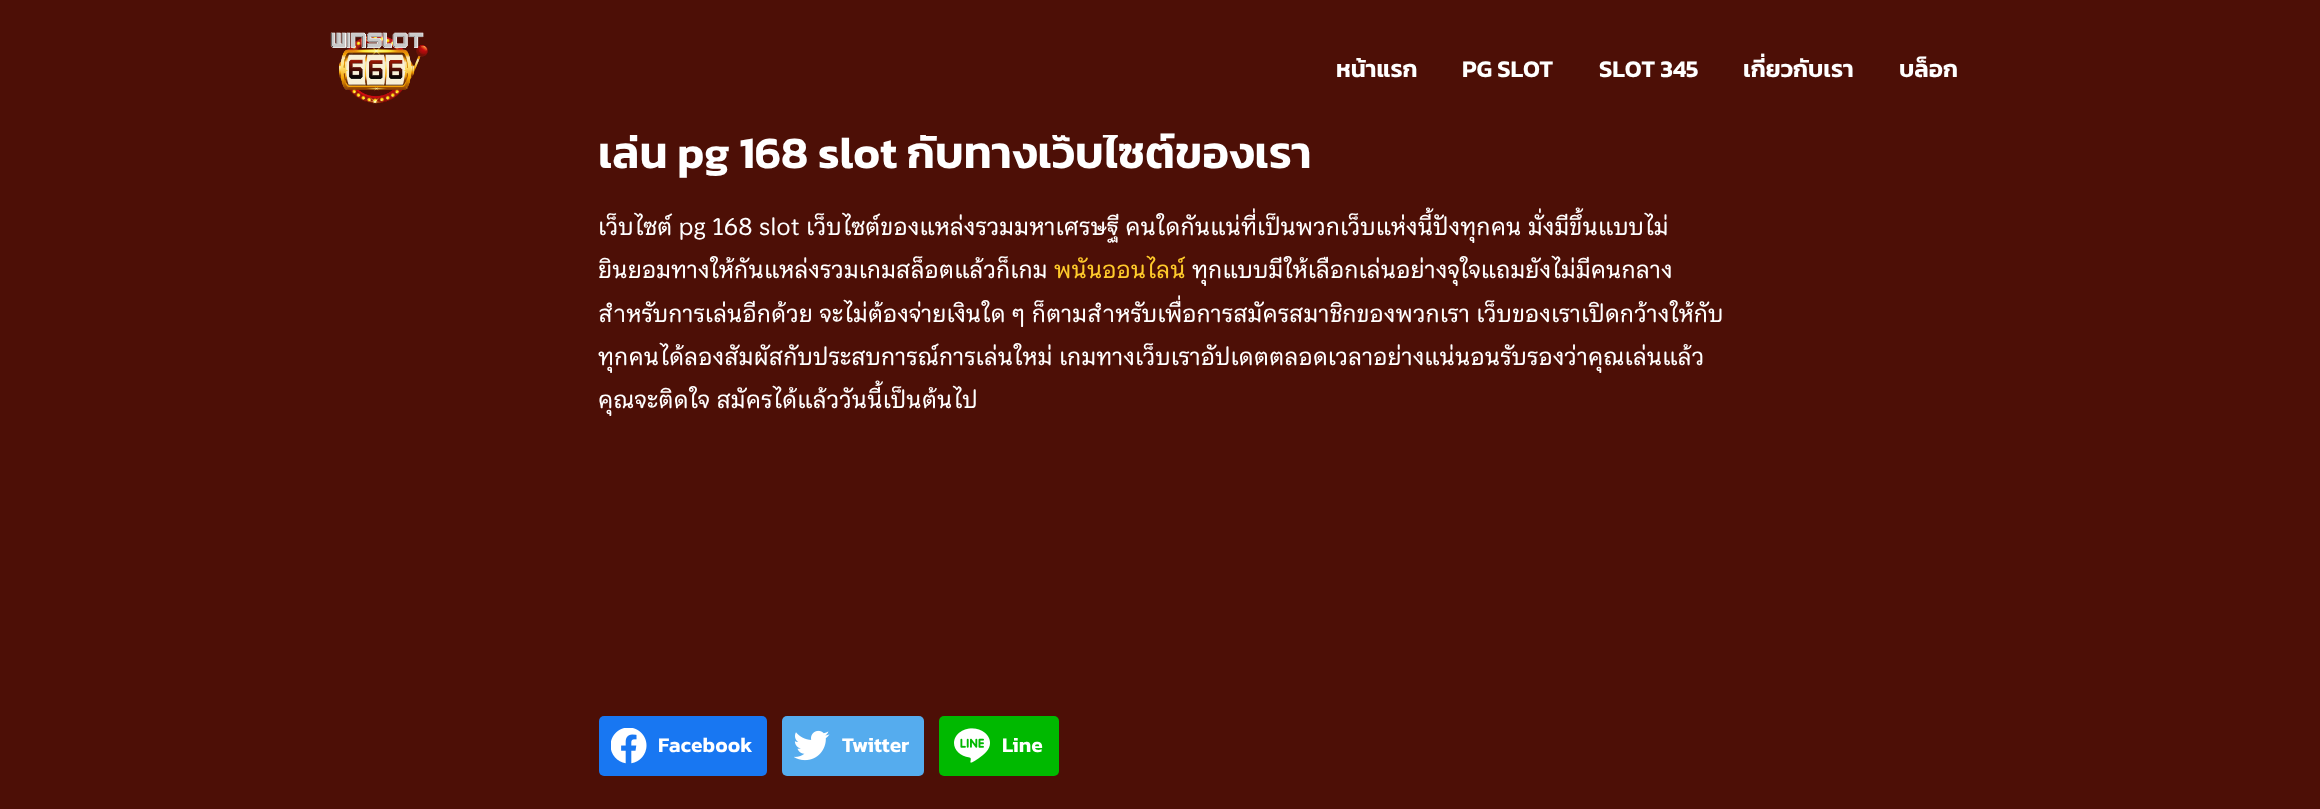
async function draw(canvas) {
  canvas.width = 2320
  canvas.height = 809
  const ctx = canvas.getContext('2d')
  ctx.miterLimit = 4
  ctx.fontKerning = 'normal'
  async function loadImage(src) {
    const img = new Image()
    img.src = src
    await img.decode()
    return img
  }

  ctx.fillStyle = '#4d0f06'
  ctx.fillRect(0, 0, 2320, 809)
  ctx.font = '600 45px Kanit'
  ctx.fillStyle = '#fff'
  ctx.fillText('เล่น pg 168 slot กับทางเว็บไซต์ของเรา', 598, 168)
  ctx.fillStyle = '#4d0f06'
  ctx.fillRect(602, 129, 543, 6)
  ctx.drawImage(await loadImage('image0.png'), 330, 32, 98, 72)
  ctx.font = '600 24px Kanit'
  ctx.fillStyle = '#fff'
  ctx.fillText('หน้าแรก', 1336, 77)
  ctx.fillText('PG SLOT', 1462, 77)
  ctx.fillText('SLOT 345', 1599, 77)
  ctx.fillText('เกี่ยวกับเรา', 1743, 77)
  ctx.fillText('บล็อก', 1899, 77)
  ctx.font = '24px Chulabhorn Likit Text'
  ctx.fillText('เว็บไซต์ pg 168 slot เว็บไซต์ของแหล่งรวมมหาเศรษฐี คนใดกันแน่ที่เป็นพวกเว็บแห่งนี้ปังทุกคน มั่งมีขึ้นแบบไม่', 598, 235)
  ctx.fillText('ยินยอมทางให้กันแหล่งรวมเกมสล็อตแล้วก็เกม', 598, 278)
  ctx.fillStyle = '#ffcb2b'
  ctx.fillText('พนันออนไลน์', 1054, 278)
  ctx.fillStyle = '#fff'
  ctx.fillText('ทุกแบบมีให้เลือกเล่นอย่างจุใจแถมยังไม่มีคนกลาง', 1192, 278)
  ctx.fillText('สำหรับการเล่นอีกด้วย จะไม่ต้องจ่ายเงินใด ๆ ก็ตามสำหรับเพื่อการสมัครสมาชิกของพวกเรา เว็บของเราเปิดกว้างให้กับ', 598, 322)
  ctx.fillText('ทุกคนได้ลองสัมผัสกับประสบการณ์การเล่นใหม่ เกมทางเว็บเราอัปเดตตลอดเวลาอย่างแน่นอนรับรองว่าคุณเล่นแล้ว', 598, 365)
  ctx.fillText('คุณจะติดใจ สมัครได้แล้ววันนี้เป็นต้นไป', 598, 408)
  ctx.fillStyle = '#1877f2'
  ctx.beginPath()
  ctx.roundRect(599, 716, 168, 60, 5)
  ctx.fill()
  ctx.drawImage(await loadImage('image1.png'), 611, 728, 36, 36)
  ctx.font = '600 21px Kanit'
  ctx.fillStyle = '#fff'
  ctx.fillText('Facebook', 658, 752)
  ctx.fillStyle = '#55acee'
  ctx.beginPath()
  ctx.roundRect(782, 716, 142, 60, 5)
  ctx.fill()
  ctx.drawImage(await loadImage('image2.png'), 794, 730, 36, 31)
  ctx.fillStyle = '#fff'
  ctx.fillText('Twitter', 842, 752)
  ctx.fillStyle = '#00b900'
  ctx.beginPath()
  ctx.roundRect(939, 716, 120, 60, 5)
  ctx.fill()
  ctx.drawImage(await loadImage('image3.png'), 954, 728, 36, 35)
  ctx.fillStyle = '#fff'
  ctx.fillText('Line', 1002, 752)
}

draw(document.querySelector('canvas'))
